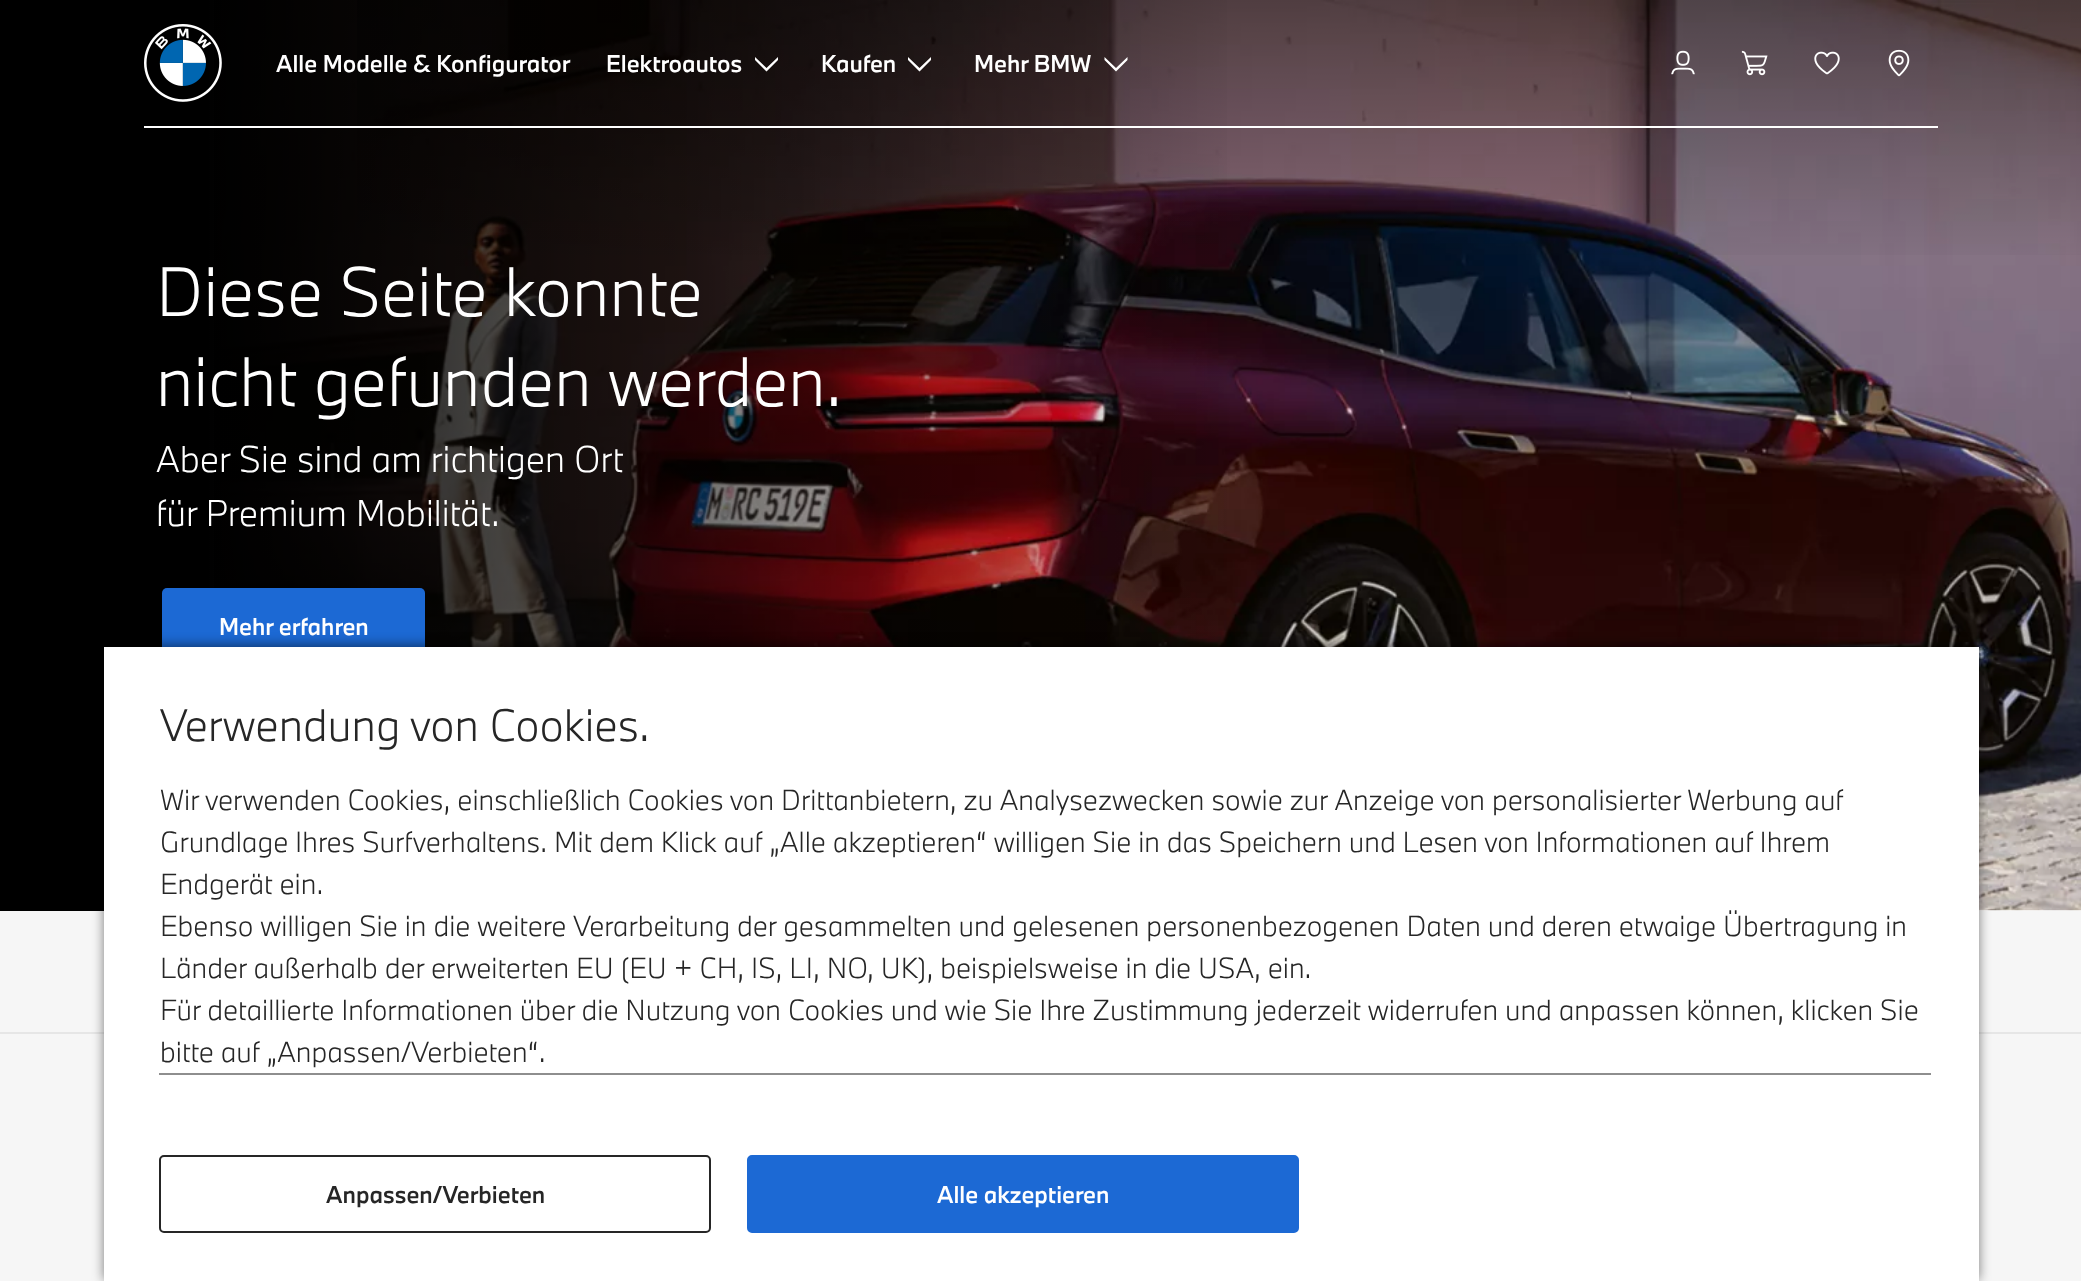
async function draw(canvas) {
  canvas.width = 2081
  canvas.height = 1281
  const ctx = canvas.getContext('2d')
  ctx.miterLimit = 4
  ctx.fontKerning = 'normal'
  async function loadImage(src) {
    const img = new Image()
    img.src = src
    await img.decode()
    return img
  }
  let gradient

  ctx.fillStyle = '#fff'
  ctx.fillRect(0, 0, 2081, 1281)
  ctx.drawImage(await loadImage('image5.png'), 214, 0, 1867, 911)
  gradient = ctx.createLinearGradient(0, 455, 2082, 455)
  gradient.addColorStop(0.1, '#000')
  gradient.addColorStop(0.2, '#000000cc')
  gradient.addColorStop(0.3, '#00000099')
  gradient.addColorStop(0.4, '#00000066')
  gradient.addColorStop(0.5, '#00000033')
  gradient.addColorStop(0.6, '#00000000')
  gradient.addColorStop(1, '#00000000')
  ctx.fillStyle = gradient
  ctx.fillRect(0, 0, 1227, 911)
  gradient = ctx.createLinearGradient(1041, 270, 1041, 0)
  gradient.addColorStop(0, '#00000000')
  gradient.addColorStop(1, '#00000066')
  ctx.fillStyle = gradient
  ctx.fillRect(357, 0, 1724, 255)
  ctx.drawImage(await loadImage('image0.png'), 144, 24, 78, 78)
  ctx.font = '500 22.5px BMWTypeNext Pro'
  ctx.fillStyle = '#fff'
  ctx.fillText('Alle Modelle & Konfigurator', 276, 72)
  ctx.fillText('Elektroautos', 606, 72)
  ctx.beginPath()
  ctx.moveTo(755, 60)
  ctx.lineTo(755, 57)
  ctx.lineTo(766.5, 68)
  ctx.lineTo(778, 57)
  ctx.lineTo(778, 60)
  ctx.lineTo(766.5, 71.5)
  ctx.closePath()
  ctx.fill()
  ctx.fillText('Kaufen', 821, 72)
  ctx.beginPath()
  ctx.moveTo(908, 60)
  ctx.lineTo(908, 57)
  ctx.lineTo(919.5, 68)
  ctx.lineTo(931, 57)
  ctx.lineTo(931, 60)
  ctx.lineTo(919.5, 71.5)
  ctx.closePath()
  ctx.fill()
  ctx.fillText('Mehr BMW', 974, 72)
  ctx.beginPath()
  ctx.moveTo(1104.5, 60)
  ctx.lineTo(1104.5, 57)
  ctx.lineTo(1116, 68)
  ctx.lineTo(1127.5, 57)
  ctx.lineTo(1127.5, 60)
  ctx.lineTo(1116, 71.5)
  ctx.closePath()
  ctx.fill()
  ctx.drawImage(await loadImage('image1.png'), 1671, 50, 24, 25)
  ctx.drawImage(await loadImage('image2.png'), 1741, 50, 27, 26)
  ctx.drawImage(await loadImage('image3.png'), 1814, 51, 26, 24)
  ctx.drawImage(await loadImage('image4.png'), 1888, 49, 22, 28)
  ctx.fillRect(144, 126, 1794, 2)
  ctx.font = '300 64.5px BMWTypeNext Pro'
  ctx.fillText('Diese Seite konnte', 156, 316)
  ctx.fillText('nicht gefunden werden.', 156, 406)
  ctx.font = '300 34.5px BMWTypeNext Pro'
  ctx.fillText('Aber Sie sind am richtigen Ort', 156, 472)
  ctx.fillText('für Premium Mobilität.', 156, 526)
  ctx.fillStyle = '#1c69d4'
  ctx.beginPath()
  ctx.roundRect(162, 588, 263, 78, 5)
  ctx.fill()
  ctx.font = '500 22.5px BMWTypeNext Pro'
  ctx.fillStyle = '#fff'
  ctx.fillText('Mehr erfahren', 219, 635)
  ctx.fillStyle = '#f6f6f6'
  ctx.fillRect(0, 911, 2081, 370)
  ctx.fillStyle = '#e6e6e6'
  ctx.fillRect(0, 1032, 2081, 2)
  ctx.fillStyle = '#00000080'
  ctx.filter = 'blur(6px)'
  ctx.beginPath()
  ctx.rect(104, 645, 1875, 635)
  ctx.fill()
  ctx.filter = 'none'
  ctx.fillStyle = '#fff'
  ctx.fillRect(104, 647, 1875, 634)
  ctx.font = '300 42px BMWTypeNext Pro'
  ctx.fillStyle = '#262626'
  ctx.fillText('Verwendung von Cookies.', 160, 741)
  ctx.font = '300 27px BMWTypeNext Pro'
  ctx.fillText('Wir verwenden Cookies, einschließlich Cookies von Drittanbietern, zu Analysezwecken sowie zur Anzeige von personalisierter Werbung auf', 160, 810)
  ctx.fillText('Grundlage Ihres Surfverhaltens. Mit dem Klick auf „Alle akzeptieren“ willigen Sie in das Speichern und Lesen von Informationen auf Ihrem', 160, 852)
  ctx.fillText('Endgerät ein.', 160, 894)
  ctx.fillText('Ebenso willigen Sie in die weitere Verarbeitung der gesammelten und gelesenen personenbezogenen Daten und deren etwaige Übertragung in', 160, 936)
  ctx.fillText('Länder außerhalb der erweiterten EU (EU + CH, IS, LI, NO, UK), beispielsweise in die USA, ein.', 160, 978)
  ctx.fillText('Für detaillierte Informationen über die Nutzung von Cookies und wie Sie Ihre Zustimmung jederzeit widerrufen und anpassen können, klicken Sie', 160, 1020)
  ctx.fillText('bitte auf „Anpassen/Verbieten“.', 160, 1062)
  ctx.fillStyle = '#8e8e8e'
  ctx.fillRect(159, 1073, 1772, 2)
  ctx.beginPath()
  ctx.roundRect(160, 1156, 550, 76, 4)
  ctx.strokeStyle = '#262626'
  ctx.lineWidth = 2
  ctx.stroke()
  ctx.font = '500 22.5px BMWTypeNext Pro'
  ctx.fillStyle = '#262626'
  ctx.fillText('Anpassen/Verbieten', 326, 1203)
  ctx.fillStyle = '#1c69d4'
  ctx.beginPath()
  ctx.roundRect(748, 1156, 550, 76, 4)
  ctx.fill()
  ctx.strokeStyle = '#1c69d4'
  ctx.stroke()
  ctx.fillStyle = '#fff'
  ctx.fillText('Alle akzeptieren', 937, 1203)
}

draw(document.querySelector('canvas'))
